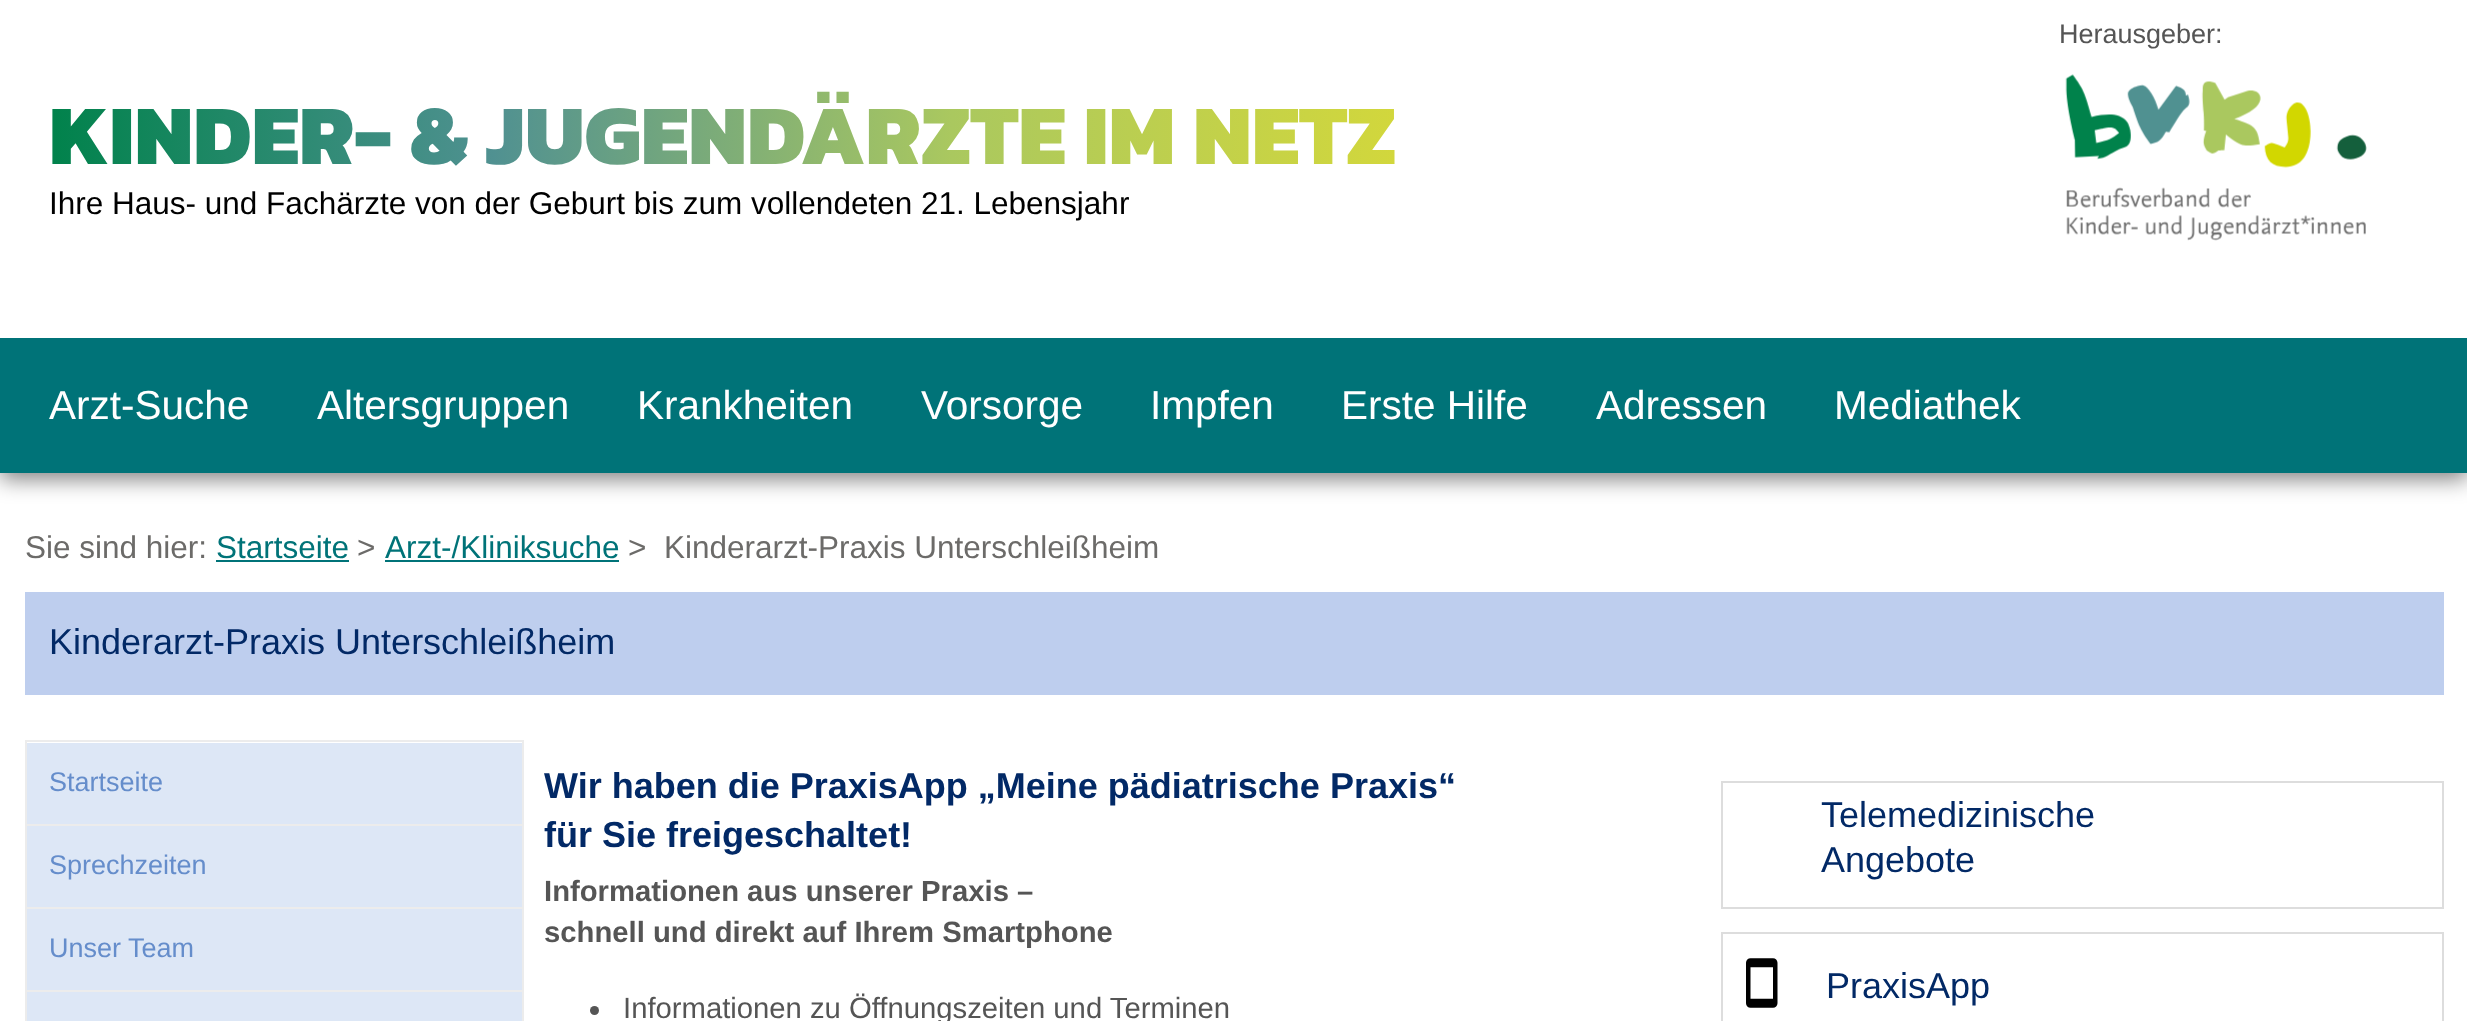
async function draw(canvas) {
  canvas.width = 2467
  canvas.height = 1021
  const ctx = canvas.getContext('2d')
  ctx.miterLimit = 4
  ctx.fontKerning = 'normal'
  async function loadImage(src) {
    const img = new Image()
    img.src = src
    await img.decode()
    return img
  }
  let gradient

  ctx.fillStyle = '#fff'
  ctx.fillRect(0, 0, 2467, 1021)
  ctx.fillStyle = '#00000080'
  ctx.filter = 'blur(11px)'
  ctx.beginPath()
  ctx.rect(0, 7, 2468, 472)
  ctx.fill()
  ctx.filter = 'none'
  ctx.fillStyle = '#fff'
  ctx.fillRect(0, 0, 2467, 338)
  ctx.drawImage(await loadImage('image0.png'), 2065, 74, 302, 167)
  ctx.font = '27px Liberation Sans'
  ctx.fillStyle = '#555'
  ctx.fillText('Herausgeber:', 2059, 43)
  ctx.font = '800 85.5px Kanit'
  gradient = ctx.createLinearGradient(49, 135, 1396, 135)
  gradient.addColorStop(0, '#00824b')
  gradient.addColorStop(0.33, '#509191')
  gradient.addColorStop(0.67, '#aac85f')
  gradient.addColorStop(1, '#d2d73c')
  ctx.fillStyle = gradient
  ctx.fillText('KINDER- & JUGENDÄRZTE IM NETZ', 49, 164)
  ctx.font = '31.5px Liberation Sans'
  ctx.fillStyle = '#000'
  ctx.fillText('Ihre Haus- und Fachärzte von der Geburt bis zum vollendeten 21. Lebensjahr', 49, 214)
  ctx.fillStyle = '#007378'
  ctx.fillRect(0, 338, 2467, 135)
  ctx.font = '40.5px Liberation Sans'
  ctx.fillStyle = '#fff'
  ctx.fillText('Arzt-Suche', 49, 419)
  ctx.fillText('Altersgruppen', 317, 419)
  ctx.fillText('Krankheiten', 637, 419)
  ctx.fillText('Vorsorge', 921, 419)
  ctx.fillText('Impfen', 1150, 419)
  ctx.fillText('Erste Hilfe', 1341, 419)
  ctx.fillText('Adressen', 1596, 419)
  ctx.fillText('Mediathek', 1834, 419)
  ctx.font = '31.5px Liberation Sans'
  ctx.fillStyle = '#6c6b69'
  ctx.fillText('Sie sind hier:', 25, 558)
  ctx.fillStyle = '#007378'
  ctx.fillText('Startseite', 216, 558)
  ctx.fillRect(216, 560, 133, 2)
  ctx.fillStyle = '#6c6b69'
  ctx.fillText('>', 357, 558)
  ctx.fillStyle = '#007378'
  ctx.fillText('Arzt-/Kliniksuche', 385, 558)
  ctx.fillRect(385, 560, 234, 2)
  ctx.fillStyle = '#6c6b69'
  ctx.fillText('>  Kinderarzt-Praxis Unterschleißheim', 628, 558)
  ctx.fillStyle = '#beceee'
  ctx.fillRect(25, 592, 2419, 103)
  ctx.font = '36px Liberation Sans'
  ctx.fillStyle = '#022966'
  ctx.fillText('Kinderarzt-Praxis Unterschleißheim', 49, 654)
  ctx.strokeStyle = '#ececec'
  ctx.lineWidth = 2
  ctx.strokeRect(26, 741, 497, 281)
  ctx.fillStyle = '#ececec'
  ctx.fillRect(27, 824, 495, 2)
  ctx.fillStyle = '#dde7f6'
  ctx.fillRect(27, 743, 495, 81)
  ctx.font = '27px Liberation Sans'
  ctx.fillStyle = '#658dcb'
  ctx.fillText('Startseite', 49, 791)
  ctx.fillStyle = '#ececec'
  ctx.fillRect(27, 907, 495, 2)
  ctx.fillStyle = '#dde7f6'
  ctx.fillRect(27, 826, 495, 81)
  ctx.fillStyle = '#658dcb'
  ctx.fillText('Sprechzeiten', 49, 874)
  ctx.fillStyle = '#ececec'
  ctx.fillRect(27, 990, 495, 2)
  ctx.fillStyle = '#dde7f6'
  ctx.fillRect(27, 909, 495, 81)
  ctx.fillStyle = '#658dcb'
  ctx.fillText('Unser Team', 49, 957)
  ctx.fillStyle = '#dde7f6'
  ctx.fillRect(27, 992, 495, 29)
  ctx.font = 'bold 36px Liberation Sans'
  ctx.fillStyle = '#022966'
  ctx.fillText('Wir haben die PraxisApp „Meine pädiatrische Praxis“', 544, 798)
  ctx.fillText('für Sie freigeschaltet!', 544, 847)
  ctx.font = 'bold 29.25px Liberation Sans'
  ctx.fillStyle = '#555'
  ctx.fillText('Informationen aus unserer Praxis –', 544, 901)
  ctx.fillText('schnell und direkt auf Ihrem Smartphone', 544, 942)
  ctx.beginPath()
  ctx.arc(594.5, 1010.5, 4.5, 0, 2 * Math.PI)
  ctx.fill()
  ctx.font = '29.25px Liberation Sans'
  ctx.fillText('Informationen zu Öffnungszeiten und Terminen', 623, 1018)
  ctx.strokeStyle = '#ddd'
  ctx.strokeRect(1722, 782, 721, 126)
  ctx.font = '36px Liberation Sans'
  ctx.fillStyle = '#022966'
  ctx.fillText('Telemedizinische', 1821, 827)
  ctx.fillText('Angebote', 1821, 872)
  ctx.strokeRect(1722, 933, 721, 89)
  ctx.drawImage(await loadImage('image1.png'), 1746, 958, 32, 50)
  ctx.fillText('PraxisApp', 1826, 998)
}

draw(document.querySelector('canvas'))
